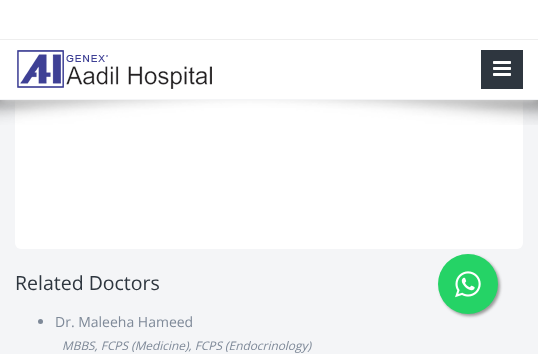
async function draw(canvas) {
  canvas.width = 538
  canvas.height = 354
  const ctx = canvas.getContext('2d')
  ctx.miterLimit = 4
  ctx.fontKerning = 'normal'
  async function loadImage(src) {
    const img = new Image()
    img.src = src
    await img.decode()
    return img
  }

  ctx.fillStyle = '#f4f5f7'
  ctx.fillRect(0, 0, 538, 354)
  ctx.fillStyle = '#fff'
  ctx.beginPath()
  ctx.roundRect(15, -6, 508, 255, 6)
  ctx.fill()
  ctx.drawImage(await loadImage('image2.png'), 0, 100, 538, 25)
  ctx.fillStyle = '#eee'
  ctx.filter = 'blur(4px)'
  ctx.beginPath()
  ctx.rect(0, 40, 538, 60)
  ctx.fill()
  ctx.filter = 'none'
  ctx.fillStyle = '#fff'
  ctx.fillRect(0, 0, 538, 39)
  ctx.fillStyle = '#eee'
  ctx.fillRect(0, 39, 538, 1)
  ctx.fillStyle = '#fff'
  ctx.fillRect(0, 40, 538, 59)
  ctx.fillStyle = '#f4f5f7'
  ctx.fillRect(0, 99, 538, 1)
  ctx.drawImage(await loadImage('image0.png'), 17, 50, 195, 39)
  ctx.fillStyle = '#2e363f'
  ctx.fillRect(481, 50, 42, 39)
  ctx.drawImage(await loadImage('image1.png'), 493, 61, 18, 15)
  ctx.font = '19.5px Open Sans'
  ctx.fillText('Related Doctors', 15, 290)
  ctx.fillStyle = '#7e8998'
  ctx.beginPath()
  ctx.arc(40.5, 321.5, 2.5, 0, 2 * Math.PI)
  ctx.fill()
  ctx.font = '14px Open Sans'
  ctx.fillText('Dr. Maleeha Hameed', 55, 327)
  ctx.font = 'italic 11.9px Open Sans'
  ctx.fillText('MBBS, FCPS (Medicine), FCPS (Endocrinology)', 62, 350)
  ctx.fillStyle = '#999'
  ctx.filter = 'blur(1.5px)'
  ctx.beginPath()
  ctx.roundRect(440, 256, 60, 60, 30)
  ctx.fill()
  ctx.filter = 'none'
  ctx.fillStyle = '#25d366'
  ctx.beginPath()
  ctx.arc(468, 284, 30, 0, 2 * Math.PI)
  ctx.fill()
  ctx.drawImage(await loadImage('image3.png'), 455, 271, 26, 27)
}

draw(document.querySelector('canvas'))
